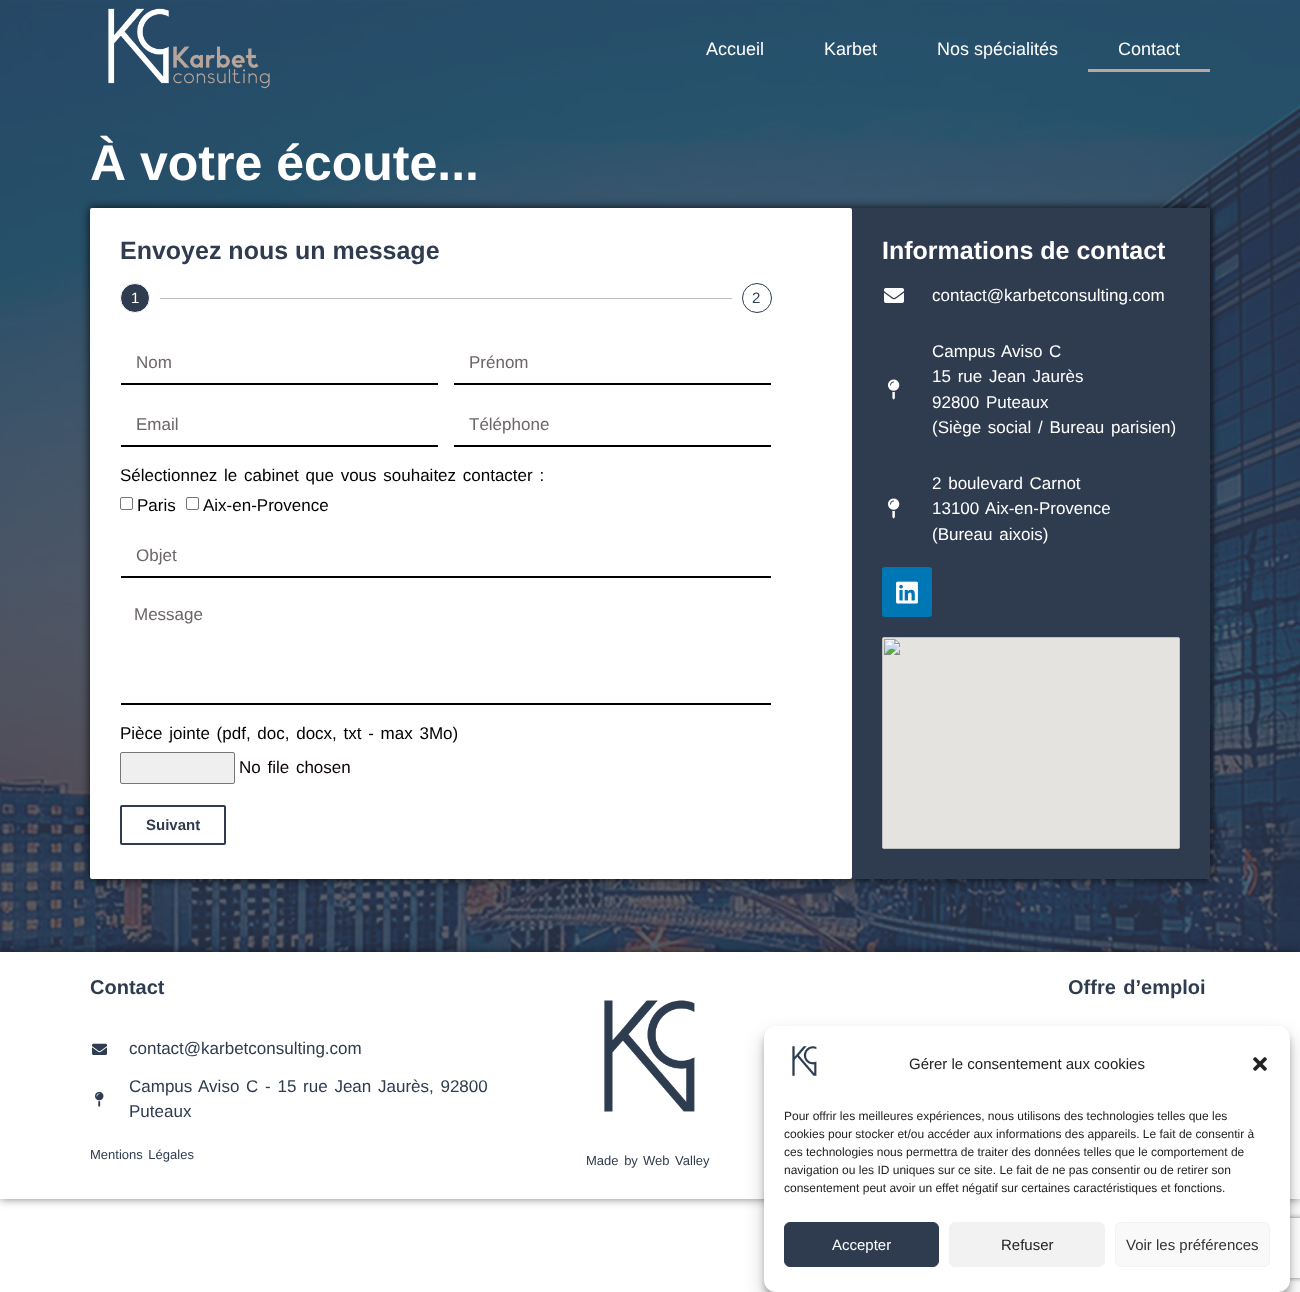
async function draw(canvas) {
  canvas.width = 1300
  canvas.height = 1292
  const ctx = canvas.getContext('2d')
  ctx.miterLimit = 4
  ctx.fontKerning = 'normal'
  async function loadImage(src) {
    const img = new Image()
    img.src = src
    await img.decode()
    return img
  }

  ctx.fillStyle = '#fff'
  ctx.fillRect(0, 0, 1300, 1292)
  ctx.drawImage(await loadImage('image1.png'), 0, 0, 1300, 952)
  ctx.drawImage(await loadImage('image0.png'), 108, 8, 162, 81)
  ctx.font = '18px Liberation Sans'
  ctx.fillText('Accueil', 706, 55)
  ctx.fillText('Karbet', 824, 55)
  ctx.fillText('Nos spécialités', 937, 55)
  ctx.fillText('Contact', 1118, 55)
  ctx.fillStyle = '#b8a89d'
  ctx.fillRect(1088, 69, 122, 3)
  ctx.font = 'bold 50px Liberation Sans'
  ctx.fillStyle = '#fff'
  ctx.fillText('À votre écoute...', 90, 180)
  ctx.fillStyle = '#000000d4'
  ctx.filter = 'blur(5px)'
  ctx.beginPath()
  ctx.rect(90, 208, 1120, 671)
  ctx.fill()
  ctx.filter = 'none'
  ctx.fillStyle = '#fff'
  ctx.beginPath()
  ctx.roundRect(90, 208, 762, 671, 2)
  ctx.fill()
  ctx.font = 'bold 25px Liberation Sans'
  ctx.fillStyle = '#2f3b4f'
  ctx.fillText('Envoyez nous un message', 120, 259)
  ctx.beginPath()
  ctx.arc(135, 298, 14.5, 0, 2 * Math.PI)
  ctx.fill()
  ctx.strokeStyle = '#fff'
  ctx.stroke()
  ctx.font = '15px Liberation Sans'
  ctx.fillStyle = '#fff'
  ctx.fillText('1', 131, 303)
  ctx.fillStyle = '#babfc5'
  ctx.fillRect(160, 298, 572, 1)
  ctx.beginPath()
  ctx.arc(757, 298, 14.5, 0, 2 * Math.PI)
  ctx.strokeStyle = '#2f3b4f'
  ctx.stroke()
  ctx.fillStyle = '#2f3b4f'
  ctx.fillText('2', 752, 303)
  ctx.fillStyle = '#000'
  ctx.fillRect(121, 383, 317, 2)
  ctx.font = '17px Liberation Sans'
  ctx.fillStyle = '#6d6666'
  ctx.fillText('Nom', 136, 368)
  ctx.fillStyle = '#000'
  ctx.fillRect(454, 383, 317, 2)
  ctx.fillStyle = '#6d6666'
  ctx.fillText('Prénom', 469, 368)
  ctx.fillStyle = '#000'
  ctx.fillRect(121, 445, 317, 2)
  ctx.fillStyle = '#6d6666'
  ctx.fillText('Email', 136, 430)
  ctx.fillStyle = '#000'
  ctx.fillRect(454, 445, 317, 2)
  ctx.fillStyle = '#6d6666'
  ctx.fillText('Téléphone', 469, 430)
  ctx.wordSpacing = '2px'
  ctx.fillStyle = '#000'
  ctx.fillText('Sélectionnez le cabinet que vous souhaitez contacter :', 120, 481)
  ctx.beginPath()
  ctx.roundRect(120.5, 497.5, 12, 12, 1.5)
  ctx.strokeStyle = '#767676'
  ctx.stroke()
  ctx.wordSpacing = '0px'
  ctx.fillText('Paris', 137, 511)
  ctx.beginPath()
  ctx.roundRect(186.5, 497.5, 12, 12, 1.5)
  ctx.stroke()
  ctx.fillText('Aix-en-Provence', 203, 511)
  ctx.fillRect(121, 576, 650, 2)
  ctx.fillStyle = '#6d6666'
  ctx.fillText('Objet', 136, 561)
  ctx.fillStyle = '#000'
  ctx.fillRect(121, 703, 650, 2)
  ctx.fillStyle = '#6d6666'
  ctx.fillText('Message', 134, 620)
  ctx.wordSpacing = '2px'
  ctx.fillStyle = '#000'
  ctx.fillText('Pièce jointe (pdf, doc, docx, txt - max 3Mo)', 120, 739)
  ctx.fillStyle = '#efefef'
  ctx.beginPath()
  ctx.roundRect(120.5, 752.5, 114, 31, 1.5)
  ctx.fill()
  ctx.stroke()
  ctx.fillStyle = '#0c0000'
  ctx.fillText('No file chosen', 239, 773)
  ctx.beginPath()
  ctx.roundRect(121, 806, 104, 38, 1)
  ctx.strokeStyle = '#2f3b4f'
  ctx.lineWidth = 2
  ctx.stroke()
  ctx.wordSpacing = '0px'
  ctx.font = 'bold 15px Liberation Sans'
  ctx.fillStyle = '#2f3b4f'
  ctx.fillText('Suivant', 146, 830)
  ctx.save()
  ctx.beginPath()
  ctx.moveTo(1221, 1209)
  ctx.lineTo(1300, 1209)
  ctx.lineTo(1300, 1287)
  ctx.lineTo(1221, 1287)
  ctx.closePath()
  ctx.moveTo(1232, 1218)
  ctx.lineTo(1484, 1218)
  ctx.bezierCurveTo(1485, 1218, 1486, 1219, 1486, 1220)
  ctx.lineTo(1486, 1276)
  ctx.bezierCurveTo(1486, 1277, 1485, 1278, 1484, 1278)
  ctx.lineTo(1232, 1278)
  ctx.bezierCurveTo(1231, 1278, 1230, 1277, 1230, 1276)
  ctx.lineTo(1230, 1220)
  ctx.bezierCurveTo(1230, 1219, 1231, 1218, 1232, 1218)
  ctx.closePath()
  ctx.clip('evenodd')
  ctx.fillStyle = '#808080'
  ctx.filter = 'blur(2.5px)'
  ctx.beginPath()
  ctx.roundRect(1230, 1218, 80, 60, 2)
  ctx.fill()
  ctx.filter = 'none'
  ctx.restore()
  ctx.fillRect(852, 208, 358, 671)
  ctx.font = 'bold 25px Liberation Sans'
  ctx.fillStyle = '#fff'
  ctx.fillText('Informations de contact', 882, 259)
  ctx.drawImage(await loadImage('image2.png'), 884, 288, 20, 15)
  ctx.font = '17px Liberation Sans'
  ctx.fillText('contact@karbetconsulting.com', 932, 301)
  ctx.drawImage(await loadImage('image3.png'), 888, 379, 12, 21)
  ctx.wordSpacing = '2px'
  ctx.fillText('Campus Aviso C', 932, 357)
  ctx.fillText('15 rue Jean Jaurès', 932, 382)
  ctx.fillText('92800 Puteaux', 932, 408)
  ctx.fillText('(Siège social / Bureau parisien)', 932, 433)
  ctx.drawImage(await loadImage('image3.png'), 888, 498, 12, 21)
  ctx.fillText('2 boulevard Carnot', 932, 489)
  ctx.fillText('13100 Aix-en-Provence', 932, 514)
  ctx.fillText('(Bureau aixois)', 932, 540)
  ctx.fillStyle = '#0077b5'
  ctx.beginPath()
  ctx.roundRect(882, 567, 50, 50, 3)
  ctx.fill()
  ctx.drawImage(await loadImage('image4.png'), 896, 581, 22, 23)
  ctx.drawImage(await loadImage('image5.png'), 882, 637, 298, 212)
  ctx.save()
  ctx.beginPath()
  ctx.moveTo(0, 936)
  ctx.lineTo(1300, 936)
  ctx.lineTo(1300, 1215)
  ctx.lineTo(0, 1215)
  ctx.closePath()
  ctx.moveTo(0, 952)
  ctx.lineTo(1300, 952)
  ctx.lineTo(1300, 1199)
  ctx.lineTo(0, 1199)
  ctx.closePath()
  ctx.clip('evenodd')
  ctx.fillStyle = '#00000080'
  ctx.filter = 'blur(5px)'
  ctx.beginPath()
  ctx.rect(0, 952, 1300, 247)
  ctx.fill()
  ctx.filter = 'none'
  ctx.restore()
  ctx.wordSpacing = '0px'
  ctx.font = 'bold 20px Liberation Sans'
  ctx.fillStyle = '#2f3b4f'
  ctx.fillText('Contact', 90, 994)
  ctx.drawImage(await loadImage('image6.png'), 92, 1043, 15, 12)
  ctx.font = '17px Liberation Sans'
  ctx.fillText('contact@karbetconsulting.com', 129, 1054)
  ctx.drawImage(await loadImage('image7.png'), 95, 1091, 9, 16)
  ctx.wordSpacing = '2px'
  ctx.fillText('Campus Aviso C - 15 rue Jean Jaurès, 92800', 129, 1092)
  ctx.wordSpacing = '0px'
  ctx.fillText('Puteaux', 129, 1117)
  ctx.wordSpacing = '2px'
  ctx.font = '13px Liberation Sans'
  ctx.fillText('Mentions Légales', 90, 1159)
  ctx.drawImage(await loadImage('image8.png'), 604, 1000, 91, 112)
  ctx.fillText('Made by', 586, 1165)
  ctx.fillText('Web Valley', 643, 1165)
  ctx.font = 'bold 20px Liberation Sans'
  ctx.fillText('Offre d’emploi', 1068, 994)
  ctx.fillStyle = '#0000003b'
  ctx.filter = 'blur(3px)'
  ctx.beginPath()
  ctx.roundRect(764, 1032, 526, 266, 12)
  ctx.fill()
  ctx.filter = 'none'
  ctx.fillStyle = '#00000030'
  ctx.filter = 'blur(10px)'
  ctx.beginPath()
  ctx.roundRect(764, 1036, 526, 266, 12)
  ctx.fill()
  ctx.filter = 'none'
  ctx.fillStyle = '#fff'
  ctx.beginPath()
  ctx.roundRect(764, 1026, 526, 266, 12)
  ctx.fill()
  ctx.drawImage(await loadImage('image9.png'), 792, 1046, 25, 30)
  ctx.wordSpacing = '0px'
  ctx.font = '15px Liberation Sans'
  ctx.fillStyle = '#222'
  ctx.fillText('Gérer le consentement aux cookies', 909, 1069)
  ctx.drawImage(await loadImage('image10.png'), 1253, 1057, 14, 14)
  ctx.font = '12px Liberation Sans'
  ctx.fillText('Pour offrir les meilleures expériences, nous utilisons des technologies telles que les', 784, 1120)
  ctx.fillText('cookies pour stocker et/ou accéder aux informations des appareils. Le fait de consentir à', 784, 1138)
  ctx.fillText('ces technologies nous permettra de traiter des données telles que le comportement de', 784, 1156)
  ctx.fillText('navigation ou les ID uniques sur ce site. Le fait de ne pas consentir ou de retirer son', 784, 1174)
  ctx.fillText('consentement peut avoir un effet négatif sur certaines caractéristiques et fonctions.', 784, 1192)
  ctx.fillStyle = '#2f3b4f'
  ctx.beginPath()
  ctx.roundRect(784.5, 1222.5, 154, 44, 5.5)
  ctx.fill()
  ctx.lineWidth = 1
  ctx.stroke()
  ctx.font = '15px Liberation Sans'
  ctx.fillStyle = '#fff'
  ctx.fillText('Accepter', 832, 1250)
  ctx.fillStyle = '#f2f2f2'
  ctx.beginPath()
  ctx.roundRect(949.5, 1222.5, 155, 44, 5.5)
  ctx.fill()
  ctx.strokeStyle = '#f2f2f2'
  ctx.stroke()
  ctx.fillStyle = '#222'
  ctx.fillText('Refuser', 1001, 1250)
  ctx.fillStyle = '#f9f9f9'
  ctx.beginPath()
  ctx.roundRect(1115.5, 1222.5, 154, 44, 5.5)
  ctx.fill()
  ctx.stroke()
  ctx.fillStyle = '#333'
  ctx.fillText('Voir les préférences', 1126, 1250)
}

draw(document.querySelector('canvas'))
